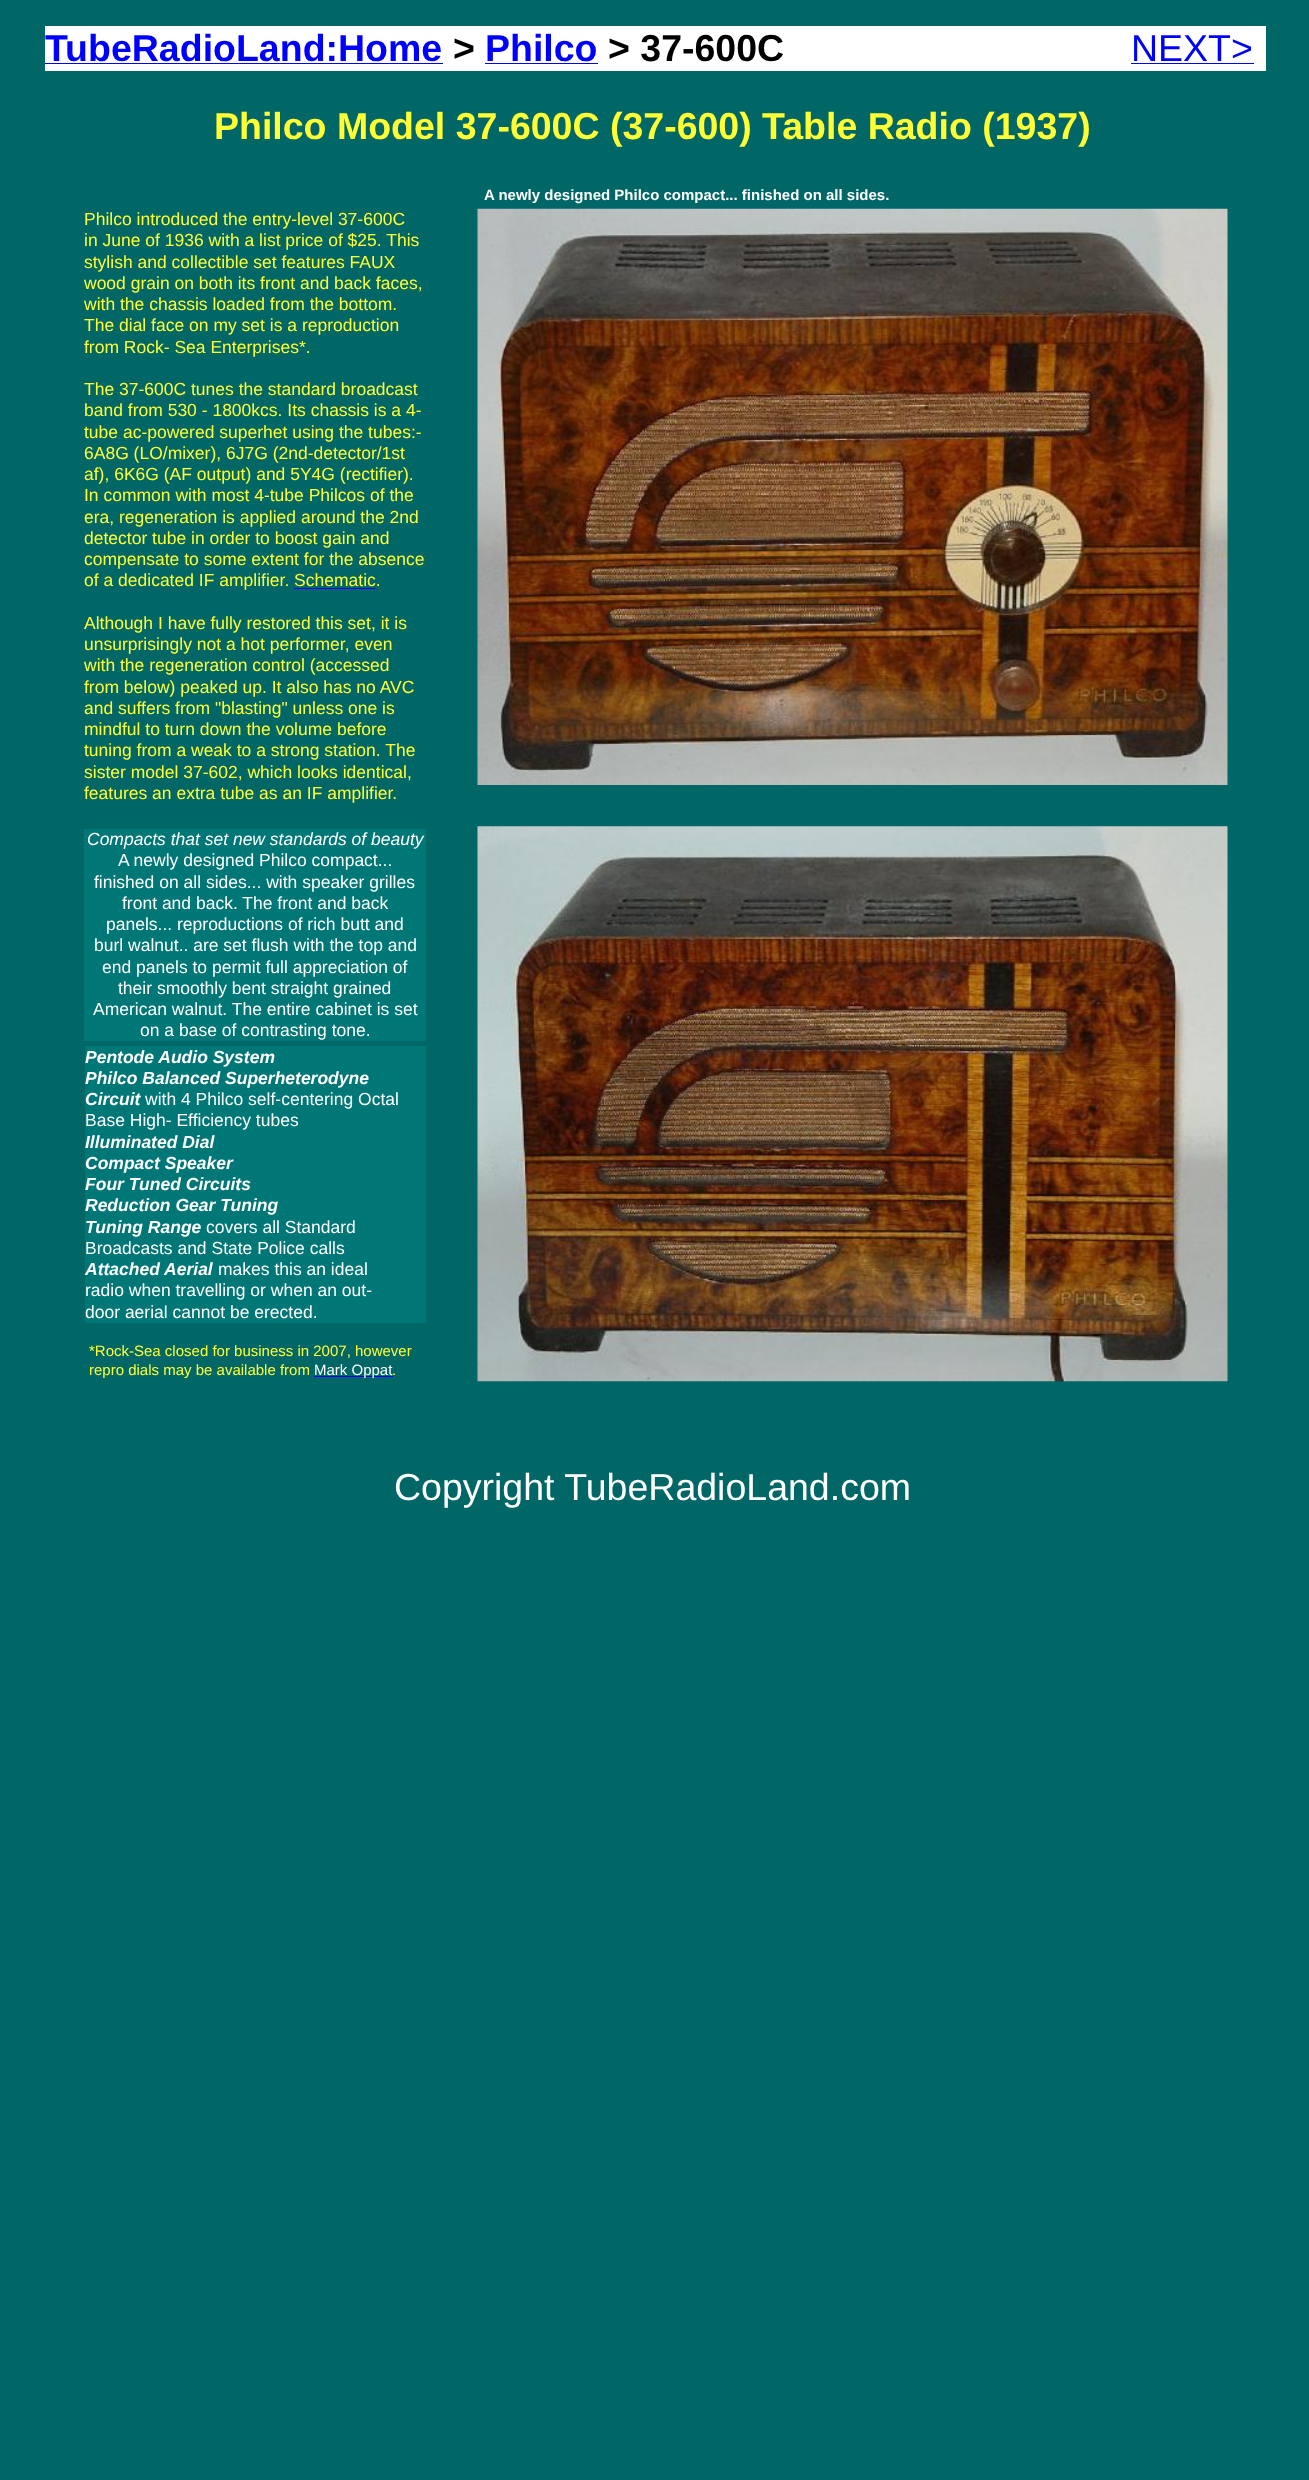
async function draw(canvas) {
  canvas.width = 1309
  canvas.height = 2480
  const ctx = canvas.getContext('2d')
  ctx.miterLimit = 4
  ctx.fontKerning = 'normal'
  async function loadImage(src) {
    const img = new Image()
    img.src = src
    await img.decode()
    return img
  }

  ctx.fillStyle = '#066'
  ctx.fillRect(0, 0, 1309, 2480)
  ctx.fillStyle = '#fff'
  ctx.fillRect(45, 26, 1221, 45)
  ctx.font = 'bold 37.5px Liberation Sans'
  ctx.fillStyle = '#00f'
  ctx.fillText('TubeRadioLand:Home', 45, 61)
  ctx.fillRect(45, 63, 398, 1)
  ctx.fillStyle = '#000'
  ctx.fillText('>', 453, 61)
  ctx.fillStyle = '#00f'
  ctx.fillText('Philco', 485, 61)
  ctx.fillRect(485, 63, 113, 1)
  ctx.fillStyle = '#000'
  ctx.fillText('> 37-600C', 608, 61)
  ctx.font = '37.5px Liberation Sans'
  ctx.fillStyle = '#00f'
  ctx.fillText('NEXT>', 1131, 61)
  ctx.fillRect(1131, 63, 123, 1)
  ctx.font = 'bold 37.5px Liberation Sans'
  ctx.fillStyle = '#ff3'
  ctx.fillText('Philco Model 37-600C (37-600) Table Radio (1937)', 214, 139)
  ctx.font = 'bold 15px Liberation Sans'
  ctx.fillStyle = '#fff'
  ctx.fillText('A newly designed Philco compact... finished on all sides.', 484, 200)
  ctx.font = '17.5px Liberation Sans'
  ctx.fillStyle = '#ff3'
  ctx.fillText('Philco introduced the entry-level 37-600C', 84, 225)
  ctx.fillText('in June of 1936 with a list price of $25. This', 84, 246)
  ctx.fillText('stylish and collectible set features FAUX', 84, 268)
  ctx.fillText('wood grain on both its front and back faces,', 84, 289)
  ctx.fillText('with the chassis loaded from the bottom.', 84, 310)
  ctx.fillText('The dial face on my set is a reproduction', 84, 331)
  ctx.fillText('from Rock- Sea Enterprises*.', 84, 353)
  ctx.fillText('The 37-600C tunes the standard broadcast', 84, 395)
  ctx.fillText('band from 530 - 1800kcs. Its chassis is a 4-', 84, 416)
  ctx.fillText('tube ac-powered superhet using the tubes:-', 84, 438)
  ctx.fillText('6A8G (LO/mixer), 6J7G (2nd-detector/1st', 84, 459)
  ctx.fillText('af), 6K6G (AF output) and 5Y4G (rectifier).', 84, 480)
  ctx.fillText('In common with most 4-tube Philcos of the', 84, 501)
  ctx.fillText('era, regeneration is applied around the 2nd', 84, 523)
  ctx.fillText('detector tube in order to boost gain and', 84, 544)
  ctx.fillText('compensate to some extent for the absence', 84, 565)
  ctx.fillText('of a dedicated IF amplifier. Schematic.', 84, 586)
  ctx.fillStyle = '#00f'
  ctx.fillRect(294, 588, 81, 1)
  ctx.fillStyle = '#ff3'
  ctx.fillText('Although I have fully restored this set, it is', 84, 629)
  ctx.fillText('unsurprisingly not a hot performer, even', 84, 650)
  ctx.fillText('with the regeneration control (accessed', 84, 671)
  ctx.fillText('from below) peaked up. It also has no AVC', 84, 693)
  ctx.fillText('and suffers from "blasting" unless one is', 84, 714)
  ctx.fillText('mindful to turn down the volume before', 84, 735)
  ctx.fillText('tuning from a weak to a strong station. The', 84, 756)
  ctx.fillText('sister model 37-602, which looks identical,', 84, 778)
  ctx.fillText('features an extra tube as an IF amplifier.', 84, 799)
  ctx.drawImage(await loadImage('image0.png'), 477, 208, 751, 577)
  ctx.fillStyle = '#077'
  ctx.fillRect(84, 829, 342, 212)
  ctx.font = 'italic 17.5px Liberation Sans'
  ctx.fillStyle = '#fff'
  ctx.fillText('Compacts that set new standards of beauty', 87, 845)
  ctx.font = '17.5px Liberation Sans'
  ctx.fillText('A newly designed Philco compact...', 118, 866)
  ctx.fillText('finished on all sides... with speaker grilles', 94, 888)
  ctx.fillText('front and back. The front and back', 122, 909)
  ctx.fillText('panels... reproductions of rich butt and', 106, 930)
  ctx.fillText('burl walnut.. are set flush with the top and', 94, 951)
  ctx.fillText('end panels to permit full appreciation of', 102, 973)
  ctx.fillText('their smoothly bent straight grained', 118, 994)
  ctx.fillText('American walnut. The entire cabinet is set', 93, 1015)
  ctx.fillText('on a base of contrasting tone.', 140, 1036)
  ctx.drawImage(await loadImage('image1.png'), 477, 826, 751, 556)
  ctx.fillStyle = '#077'
  ctx.fillRect(85, 1046, 341, 277)
  ctx.font = 'italic bold 17.5px Liberation Sans'
  ctx.fillStyle = '#fff'
  ctx.fillText('Pentode Audio System', 85, 1063)
  ctx.fillText('Philco Balanced Superheterodyne', 85, 1084)
  ctx.fillText('Circuit', 85, 1105)
  ctx.font = '17.5px Liberation Sans'
  ctx.fillText('with 4 Philco self-centering Octal', 145, 1105)
  ctx.fillText('Base High- Efficiency tubes', 85, 1126)
  ctx.font = 'italic bold 17.5px Liberation Sans'
  ctx.fillText('Illuminated Dial', 85, 1148)
  ctx.fillText('Compact Speaker', 85, 1169)
  ctx.fillText('Four Tuned Circuits', 85, 1190)
  ctx.fillText('Reduction Gear Tuning', 85, 1211)
  ctx.fillText('Tuning Range', 85, 1233)
  ctx.font = '17.5px Liberation Sans'
  ctx.fillText('covers all Standard', 206, 1233)
  ctx.fillText('Broadcasts and State Police calls', 85, 1254)
  ctx.font = 'italic bold 17.5px Liberation Sans'
  ctx.fillText('Attached Aerial', 85, 1275)
  ctx.font = '17.5px Liberation Sans'
  ctx.fillText('makes this an ideal', 218, 1275)
  ctx.fillText('radio when travelling or when an out-', 85, 1296)
  ctx.fillText('door aerial cannot be erected.', 85, 1318)
  ctx.font = '15px Liberation Sans'
  ctx.fillStyle = '#ff3'
  ctx.fillText('*Rock-Sea closed for business in 2007, however', 89, 1356)
  ctx.fillText('repro dials may be available from', 89, 1375)
  ctx.fillStyle = '#00f'
  ctx.fillRect(314, 1376, 79, 1)
  ctx.fillStyle = '#fff'
  ctx.fillText('Mark Oppat', 314, 1375)
  ctx.fillStyle = '#ff3'
  ctx.fillText('.', 392, 1375)
  ctx.font = '37.5px Liberation Sans'
  ctx.fillStyle = '#fff'
  ctx.fillText('Copyright TubeRadioLand.com', 394, 1500)
}

draw(document.querySelector('canvas'))
